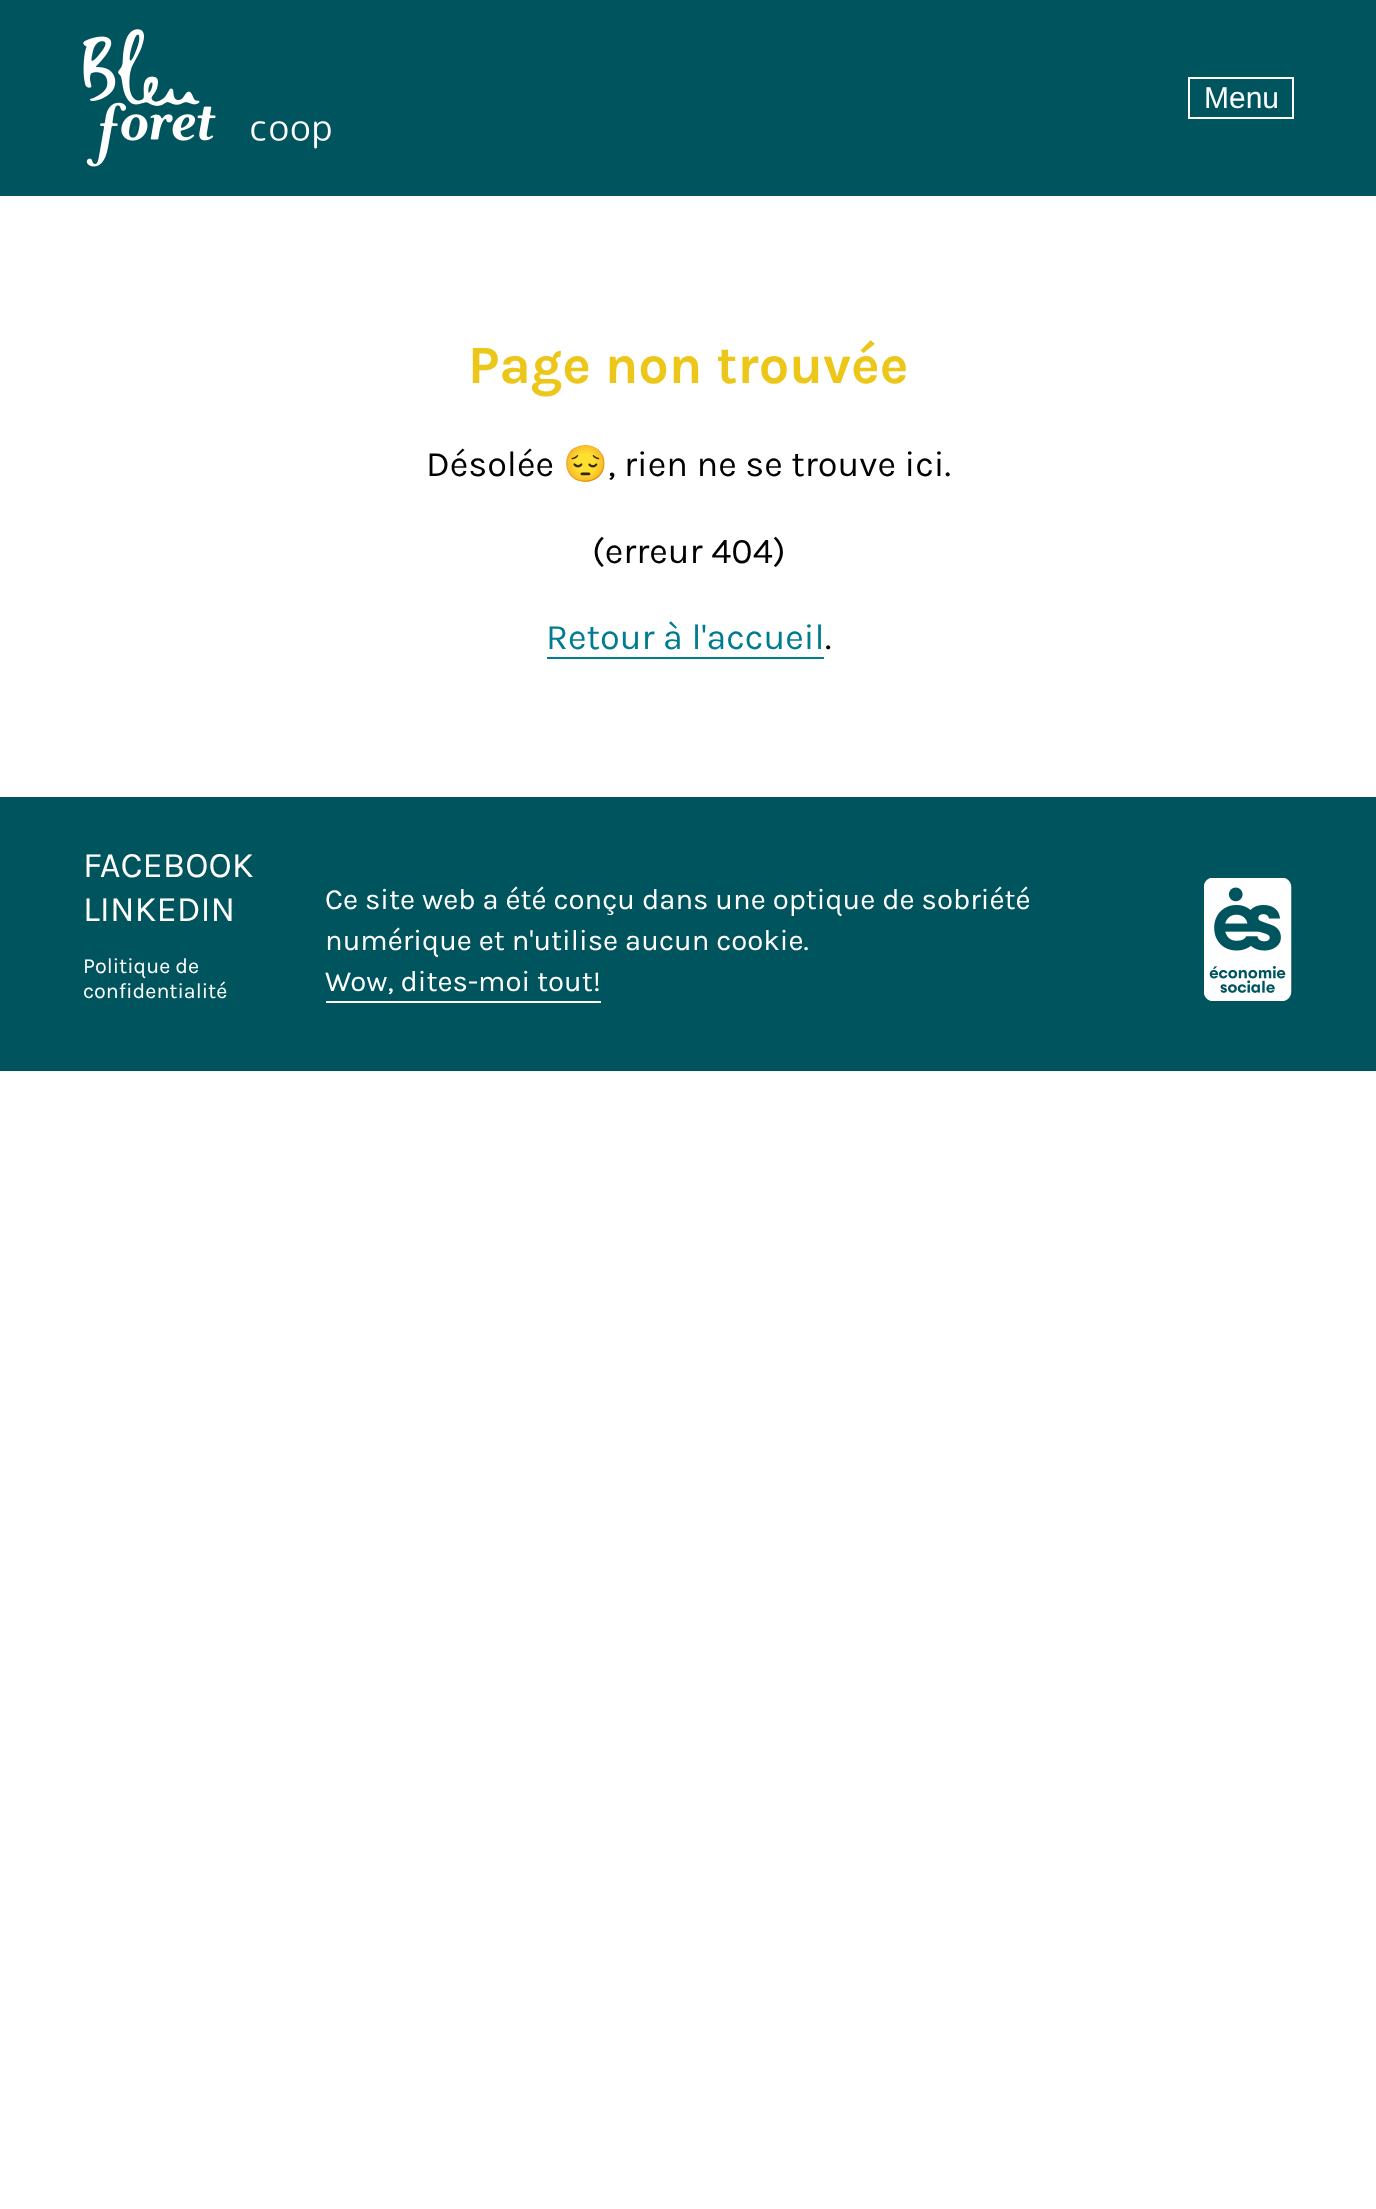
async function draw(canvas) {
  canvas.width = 1376
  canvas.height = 2209
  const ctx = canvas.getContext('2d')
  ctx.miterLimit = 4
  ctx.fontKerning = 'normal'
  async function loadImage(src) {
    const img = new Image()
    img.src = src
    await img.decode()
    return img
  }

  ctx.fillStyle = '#fff'
  ctx.fillRect(0, 0, 1376, 2209)
  ctx.fillStyle = '#00545e'
  ctx.fillRect(0, 0, 1376, 196)
  ctx.drawImage(await loadImage('image0.png'), 83, 29, 248, 138)
  ctx.strokeStyle = '#fff'
  ctx.lineWidth = 2
  ctx.strokeRect(1189, 78, 104, 40)
  ctx.font = '30px Liberation Sans'
  ctx.fillStyle = '#fff'
  ctx.fillText('Menu', 1204, 108)
  ctx.font = 'bold 54px Karla'
  ctx.fillStyle = '#edc61a'
  ctx.fillText('Page non trouvée', 468, 383)
  ctx.font = '36px Karla'
  ctx.fillStyle = '#000'
  ctx.fillText('Désolée', 426, 476)
  ctx.font = '36px Noto Color Emoji'
  ctx.fillText('😔', 563, 476)
  ctx.font = '36px Karla'
  ctx.fillText(', rien ne se trouve ici.', 608, 476)
  ctx.fillText('(erreur 404)', 592, 563)
  ctx.fillStyle = '#007c92'
  ctx.fillText('Retour à l\'accueil', 546, 649)
  ctx.fillRect(547, 657, 277, 2)
  ctx.fillStyle = '#000'
  ctx.fillText('.', 825, 649)
  ctx.fillStyle = '#00545e'
  ctx.fillRect(0, 797, 1376, 274)
  ctx.fillStyle = '#fff'
  ctx.fillText('FACEBOOK', 83, 877)
  ctx.fillText('LINKEDIN', 83, 921)
  ctx.font = '29.25px Karla'
  ctx.fillText('Ce site web a été conçu dans une optique de sobriété', 325, 909)
  ctx.fillText('numérique et n\'utilise aucun cookie.', 325, 950)
  ctx.fillRect(326, 1001, 275, 2)
  ctx.fillText('Wow, dites-moi tout!', 325, 991)
  ctx.drawImage(await loadImage('image1.png'), 1204, 878, 88, 123)
  ctx.font = '21.5px Karla'
  ctx.fillText('Politique de', 83, 973)
  ctx.fillText('confidentialité', 83, 998)
}

draw(document.querySelector('canvas'))
